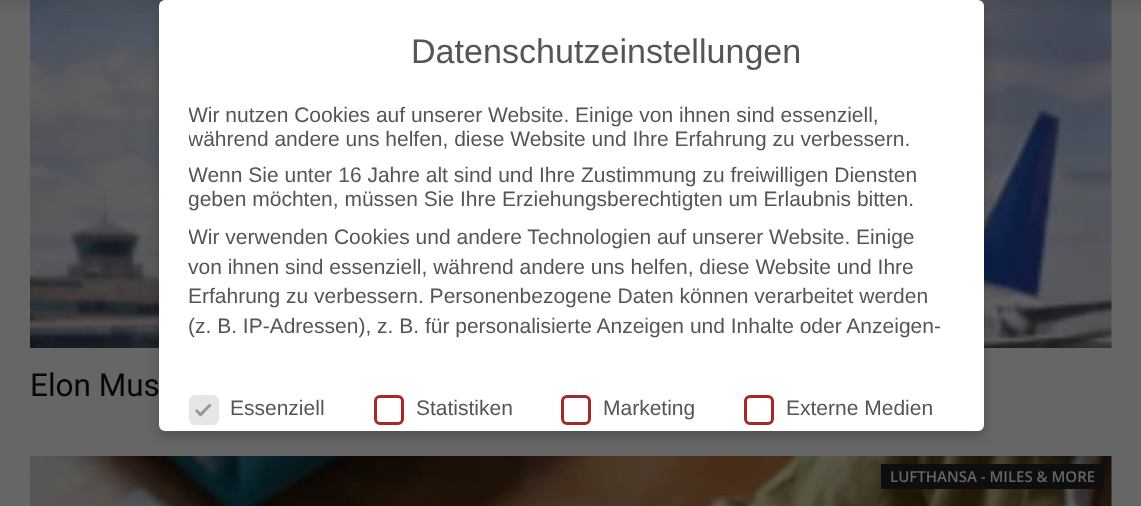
async function draw(canvas) {
  canvas.width = 1141
  canvas.height = 506
  const ctx = canvas.getContext('2d')
  ctx.miterLimit = 4
  ctx.fontKerning = 'normal'
  async function loadImage(src) {
    const img = new Image()
    img.src = src
    await img.decode()
    return img
  }

  ctx.fillStyle = '#666'
  ctx.fillRect(0, 0, 1141, 506)
  ctx.drawImage(await loadImage('image1.png'), 30, 0, 1082, 348)
  ctx.drawImage(await loadImage('image0.png'), 0, 0, 1141, 13)
  ctx.fillStyle = '#00000033'
  ctx.filter = 'blur(6px)'
  ctx.beginPath()
  ctx.roundRect(159, 6, 825, 431, 6)
  ctx.fill()
  ctx.filter = 'none'
  ctx.fillStyle = '#fff'
  ctx.beginPath()
  ctx.roundRect(159, 0, 825, 431, 6)
  ctx.fill()
  ctx.font = '34.1px Liberation Sans'
  ctx.fillStyle = '#555'
  ctx.fillText('Datenschutzeinstellungen', 411, 63)
  ctx.save()
  ctx.beginPath()
  ctx.rect(189, 102, 765, 254)
  ctx.clip()
  ctx.font = '21px Liberation Sans'
  ctx.fillText('Wir nutzen Cookies auf unserer Website. Einige von ihnen sind essenziell,', 188, 122)
  ctx.fillText('während andere uns helfen, diese Website und Ihre Erfahrung zu verbessern.', 188, 146)
  ctx.fillText('Wenn Sie unter 16 Jahre alt sind und Ihre Zustimmung zu freiwilligen Diensten', 188, 182)
  ctx.restore()
  ctx.font = '21px Liberation Sans'
  ctx.fillText('geben möchten, müssen Sie Ihre Erziehungsberechtigten um Erlaubnis bitten.', 188, 206)
  ctx.save()
  ctx.beginPath()
  ctx.rect(189, 102, 765, 254)
  ctx.clip()
  ctx.fillText('Wir verwenden Cookies und andere Technologien auf unserer Website. Einige', 188, 244)
  ctx.restore()
  ctx.fillText('von ihnen sind essenziell, während andere uns helfen, diese Website und Ihre', 188, 274)
  ctx.fillText('Erfahrung zu verbessern. Personenbezogene Daten können verarbeitet werden', 188, 303)
  ctx.fillText('(z. B. IP-Adressen), z. B. für personalisierte Anzeigen und Inhalte oder Anzeigen-', 188, 333)
  ctx.fillStyle = '#e6e6e6'
  ctx.beginPath()
  ctx.roundRect(190.5, 396.5, 27, 27, 4.5)
  ctx.fill()
  ctx.strokeStyle = '#e6e6e6'
  ctx.lineWidth = 3
  ctx.stroke()
  ctx.fillStyle = '#999'
  ctx.beginPath()
  ctx.moveTo(209.5, 403.5)
  ctx.lineTo(211.5, 405.5)
  ctx.lineTo(201, 416.5)
  ctx.lineTo(199, 414)
  ctx.closePath()
  ctx.fill()
  ctx.beginPath()
  ctx.moveTo(197, 409)
  ctx.lineTo(202, 414)
  ctx.lineTo(200, 416.5)
  ctx.lineTo(195, 411)
  ctx.closePath()
  ctx.fill()
  ctx.fillStyle = '#555'
  ctx.fillText('Essenziell', 230, 415)
  ctx.beginPath()
  ctx.roundRect(375.5, 396.5, 27, 27, 4.5)
  ctx.strokeStyle = '#a72828'
  ctx.stroke()
  ctx.fillText('Statistiken', 416, 415)
  ctx.beginPath()
  ctx.roundRect(562.5, 396.5, 27, 27, 4.5)
  ctx.stroke()
  ctx.fillText('Marketing', 603, 415)
  ctx.beginPath()
  ctx.roundRect(745.5, 396.5, 27, 27, 4.5)
  ctx.stroke()
  ctx.fillText('Externe Medien', 786, 415)
  ctx.font = '31.5px Roboto'
  ctx.fillStyle = '#070707'
  ctx.fillText('Elon Mus', 30, 396)
  ctx.drawImage(await loadImage('image2.png'), 30, 456, 1082, 50)
  ctx.fillStyle = '#0e0e0e'
  ctx.fillRect(881, 464, 223, 25)
  ctx.font = '600 15px Open Sans'
  ctx.fillStyle = '#666'
  ctx.fillText('LUFTHANSA - MILES & MORE', 890, 482)
}

draw(document.querySelector('canvas'))
